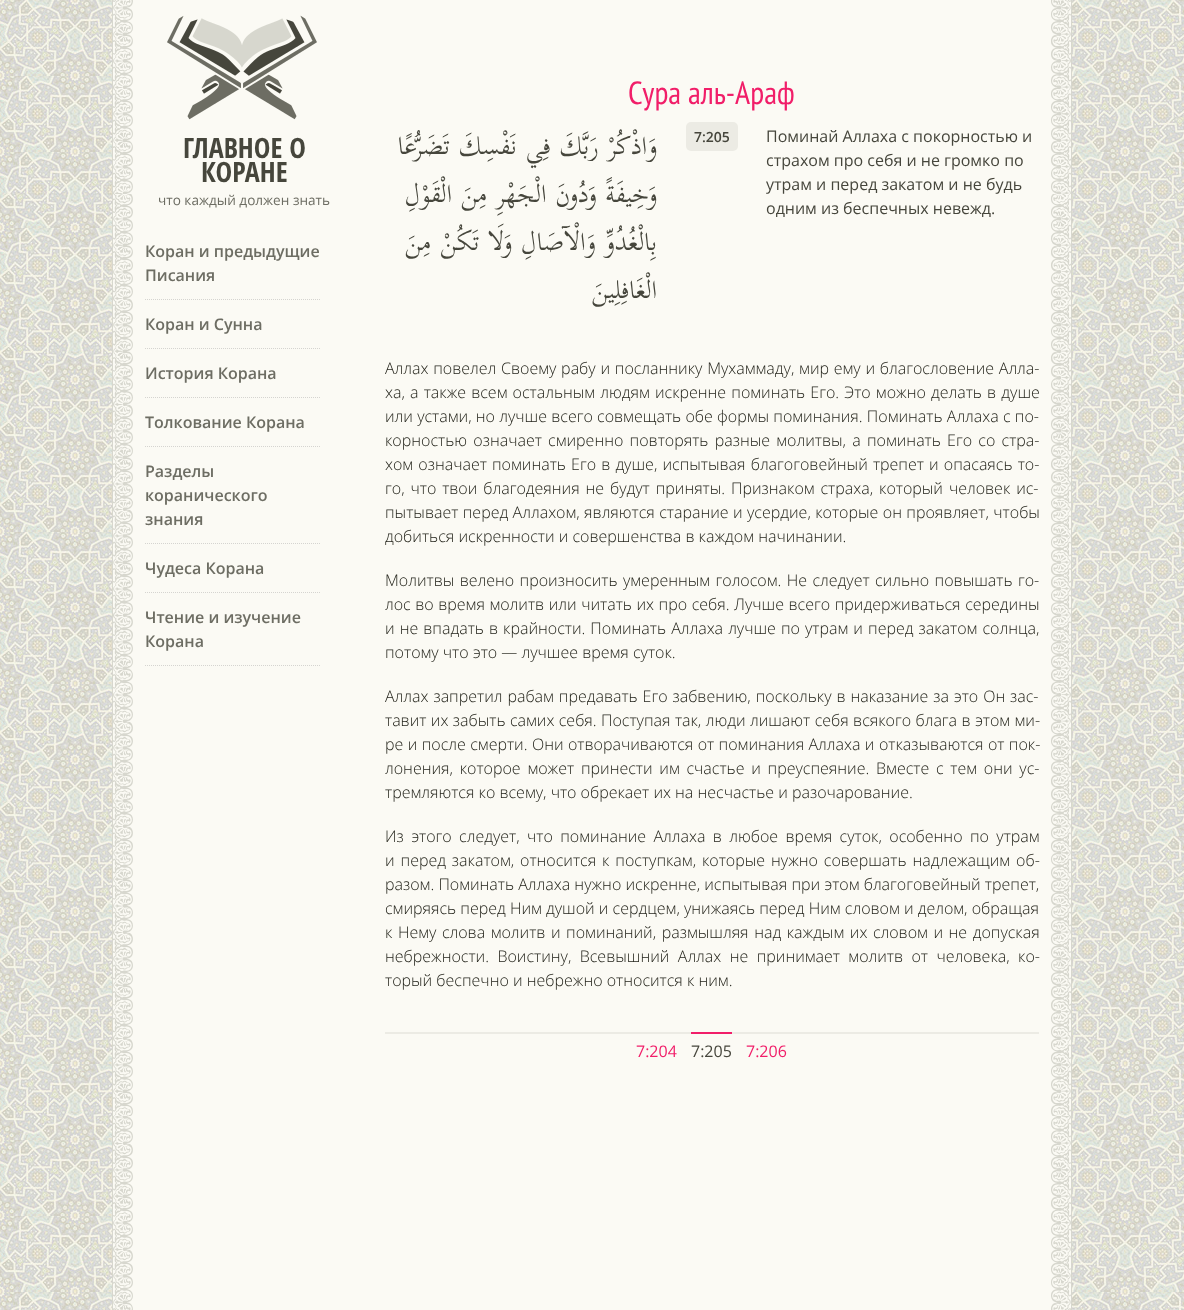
async function draw(canvas) {
  canvas.width = 1184
  canvas.height = 1310
  const ctx = canvas.getContext('2d')
  ctx.miterLimit = 4
  ctx.fontKerning = 'normal'
  async function loadImage(src) {
    const img = new Image()
    img.src = src
    await img.decode()
    return img
  }

  ctx.fillStyle = '#fff'
  ctx.fillRect(0, 0, 1184, 1310)
  ctx.drawImage(await loadImage('image0.png'), 0, 0, 1184, 1310)
  ctx.fillStyle = '#fbfaf4'
  ctx.fillRect(113, 0, 958, 1310)
  ctx.drawImage(await loadImage('image1.png'), 113, 0, 958, 1310)
  ctx.fillStyle = '#d7d7ce'
  ctx.fillRect(1071, 0, 1, 1310)
  ctx.fillRect(112, 0, 1, 1310)
  ctx.drawImage(await loadImage('image2.png'), 167, 15, 150, 105)
  ctx.font = 'bold 28px Open Sans Condensed'
  ctx.fillStyle = '#46463c'
  ctx.fillText('ГЛАВНОЕ О', 183, 158)
  ctx.fillText('КОРАНЕ', 201, 182)
  ctx.font = '13.6px Open Sans'
  ctx.fillStyle = '#6d6d63'
  ctx.fillText('что каждый должен знать', 158, 205)
  ctx.beginPath()
  ctx.moveTo(145, 299.5)
  ctx.lineTo(321, 299.5)
  ctx.strokeStyle = '#d5d4d0'
  ctx.setLineDash([1, 1])
  ctx.stroke()
  ctx.font = '600 16px Open Sans'
  ctx.fillText('Коран и предыдущие', 145, 257)
  ctx.fillText('Писания', 145, 281)
  ctx.beginPath()
  ctx.moveTo(145, 348.5)
  ctx.lineTo(321, 348.5)
  ctx.stroke()
  ctx.fillText('Коран и Сунна', 145, 330)
  ctx.beginPath()
  ctx.moveTo(145, 397.5)
  ctx.lineTo(321, 397.5)
  ctx.stroke()
  ctx.fillText('История Корана', 145, 379)
  ctx.beginPath()
  ctx.moveTo(145, 446.5)
  ctx.lineTo(321, 446.5)
  ctx.stroke()
  ctx.fillText('Толкование Корана', 145, 428)
  ctx.beginPath()
  ctx.moveTo(145, 543.5)
  ctx.lineTo(321, 543.5)
  ctx.stroke()
  ctx.fillText('Разделы', 145, 477)
  ctx.fillText('коранического', 145, 501)
  ctx.fillText('знания', 145, 525)
  ctx.beginPath()
  ctx.moveTo(145, 592.5)
  ctx.lineTo(321, 592.5)
  ctx.stroke()
  ctx.fillText('Чудеса Корана', 145, 574)
  ctx.beginPath()
  ctx.moveTo(145, 665.5)
  ctx.lineTo(321, 665.5)
  ctx.stroke()
  ctx.fillText('Чтение и изучение', 145, 623)
  ctx.fillText('Корана', 145, 647)
  ctx.font = '32px PT Sans Narrow'
  ctx.fillStyle = '#f11e69'
  ctx.fillText('Сура аль-Араф', 628, 104)
  ctx.direction = 'rtl'
  ctx.font = '36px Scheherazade'
  ctx.fillStyle = '#46463c'
  ctx.fillText('وَاذْكُرْ رَبَّكَ فِي نَفْسِكَ تَضَرُّعًا', 657, 154)
  ctx.fillText('وَخِيفَةً وَدُونَ الْجَهْرِ مِنَ الْقَوْلِ', 657, 202)
  ctx.fillText('بِالْغُدُوِّ وَالْآصَالِ وَلَا تَكُنْ مِنَ', 657, 250)
  ctx.fillText('الْغَافِلِينَ', 657, 298)
  ctx.fillStyle = '#ecebe4'
  ctx.beginPath()
  ctx.roundRect(686, 122, 52, 29, 5)
  ctx.fill()
  ctx.direction = 'ltr'
  ctx.font = '600 14px Open Sans'
  ctx.fillStyle = '#46463c'
  ctx.fillText('7:205', 694, 142)
  ctx.font = '16px Open Sans'
  ctx.fillText('Поминай Аллаха с покорностью и', 766, 142)
  ctx.fillText('страхом про себя и не громко по', 766, 166)
  ctx.fillText('утрам и перед закатом и не будь', 766, 190)
  ctx.fillText('одним из беспечных невежд.', 766, 214)
  ctx.wordSpacing = '0.6px'
  ctx.font = '300 16px Open Sans'
  ctx.fillStyle = '#25251c'
  ctx.fillText('Аллах повелел Своему рабу и посланнику Мухаммаду, мир ему и благословение Алла-', 385, 374)
  ctx.wordSpacing = '1px'
  ctx.fillText('ха, а также всем остальным людям искренне поминать Его. Это можно делать в душе', 385, 398)
  ctx.wordSpacing = '0.1px'
  ctx.fillText('или устами, но лучше всего совмещать обе формы поминания. Поминать Аллаха с по-', 385, 422)
  ctx.wordSpacing = '2.1px'
  ctx.fillText('корностью означает смиренно повторять разные молитвы, а поминать Его со стра-', 385, 446)
  ctx.wordSpacing = '1px'
  ctx.fillText('хом означает поминать Его в душе, испытывая благоговейный трепет и опасаясь то-', 385, 470)
  ctx.wordSpacing = '1.75px'
  ctx.fillText('го, что твои благодеяния не будут приняты. Признаком страха, который человек ис-', 385, 494)
  ctx.wordSpacing = '0.25px'
  ctx.fillText('пытывает перед Аллахом, являются старание и усердие, которые он проявляет, чтобы', 385, 518)
  ctx.wordSpacing = '0px'
  ctx.fillText('добиться искренности и совершенства в каждом начинании.', 385, 542)
  ctx.wordSpacing = '1.25px'
  ctx.fillText('Молитвы велено произносить умеренным голосом. Не следует сильно повышать го-', 385, 586)
  ctx.wordSpacing = '0.4px'
  ctx.fillText('лос во время молитв или читать их про себя. Лучше всего придерживаться середины', 385, 610)
  ctx.wordSpacing = '0.9px'
  ctx.fillText('и не впадать в крайности. Поминать Аллаха лучше по утрам и перед закатом солнца,', 385, 634)
  ctx.wordSpacing = '0px'
  ctx.fillText('потому что это — лучшее время суток.', 385, 658)
  ctx.wordSpacing = '0.75px'
  ctx.fillText('Аллах запретил рабам предавать Его забвению, поскольку в наказание за это Он зас-', 385, 702)
  ctx.wordSpacing = '0.25px'
  ctx.fillText('тавит их забыть самих себя. Поступая так, люди лишают себя всякого блага в этом ми-', 385, 726)
  ctx.fillText('ре и после смерти. Они отворачиваются от поминания Аллаха и отказываются от пок-', 385, 750)
  ctx.wordSpacing = '2.6px'
  ctx.fillText('лонения, которое может принести им счастье и преуспеяние. Вместе с тем они ус-', 385, 774)
  ctx.wordSpacing = '0px'
  ctx.fillText('тремляются ко всему, что обрекает их на несчастье и разочарование.', 385, 798)
  ctx.wordSpacing = '3.25px'
  ctx.fillText('Из этого следует, что поминание Аллаха в любое время суток, особенно по утрам', 385, 842)
  ctx.wordSpacing = '1.75px'
  ctx.fillText('и перед закатом, относится к поступкам, которые нужно совершать надлежащим об-', 385, 866)
  ctx.wordSpacing = '0px'
  ctx.fillText('разом. Поминать Аллаха нужно искренне, испытывая при этом благоговейный трепет,', 385, 890)
  ctx.fillText('смиряясь перед Ним душой и сердцем, унижаясь перед Ним словом и делом, обращая', 385, 914)
  ctx.wordSpacing = '1.4px'
  ctx.fillText('к Нему слова молитв и поминаний, размышляя над каждым их словом и не допуская', 385, 938)
  ctx.wordSpacing = '4.25px'
  ctx.fillText('небрежности. Воистину, Всевышний Аллах не принимает молитв от человека, ко-', 385, 962)
  ctx.wordSpacing = '0px'
  ctx.fillText('торый беспечно и небрежно относится к ним.', 385, 986)
  ctx.fillStyle = '#ecebe4'
  ctx.fillRect(385, 1032, 654, 2)
  ctx.font = '16px Open Sans'
  ctx.fillStyle = '#f11e69'
  ctx.fillText('7:204', 636, 1057)
  ctx.fillRect(691, 1032, 41, 2)
  ctx.fillStyle = '#46463c'
  ctx.fillText('7:205', 691, 1057)
  ctx.fillStyle = '#f11e69'
  ctx.fillText('7:206', 746, 1057)
}

draw(document.querySelector('canvas'))
